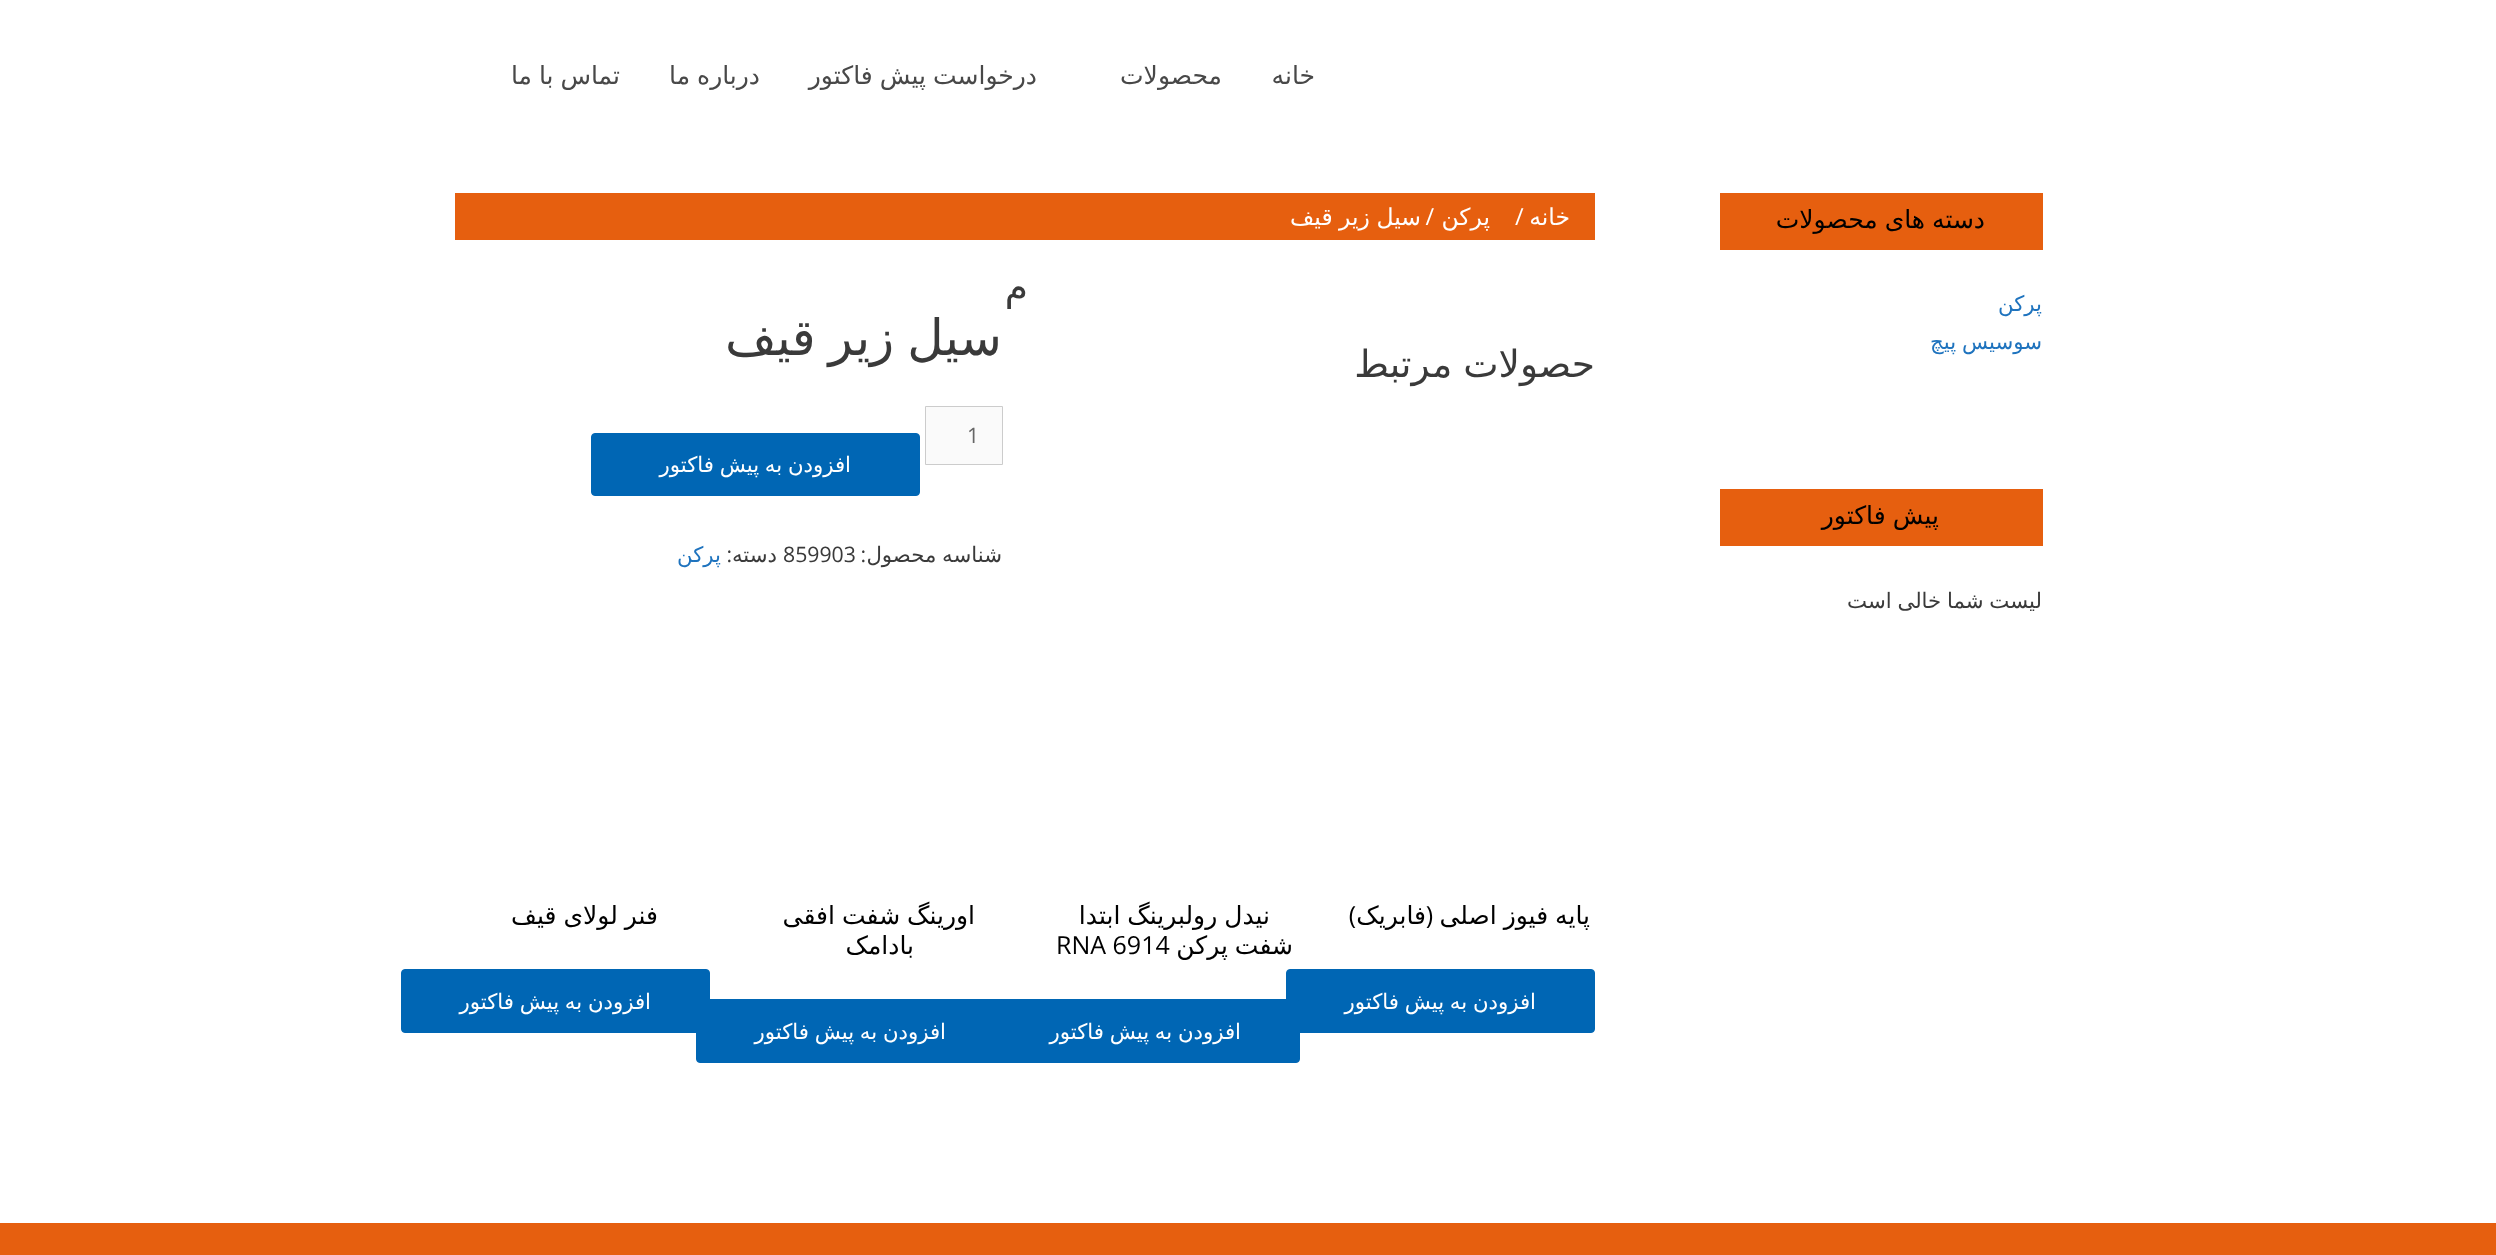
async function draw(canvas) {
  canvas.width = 2496
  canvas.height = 1255
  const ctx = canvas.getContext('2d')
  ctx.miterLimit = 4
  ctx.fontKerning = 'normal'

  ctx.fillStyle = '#fff'
  ctx.fillRect(0, 0, 2496, 1255)
  ctx.direction = 'rtl'
  ctx.font = '25px DejaVu Sans'
  ctx.fillStyle = '#484848'
  ctx.fillText('خانه', 1315, 84)
  ctx.fillText('محصولات', 1222, 84)
  ctx.wordSpacing = '-1px'
  ctx.fillText('درخواست پیش فاکتور', 1037, 84)
  ctx.fillText('درباره ما', 760, 84)
  ctx.fillText('تماس با ما', 620, 84)
  ctx.fillStyle = '#e65f0f'
  ctx.fillRect(1720, 193, 323, 57)
  ctx.fillStyle = '#000'
  ctx.fillText('دسته های محصولات', 1985, 228)
  ctx.wordSpacing = '0px'
  ctx.font = '21.25px DejaVu Sans'
  ctx.fillStyle = '#1e73be'
  ctx.fillText('پرکن', 2042, 311)
  ctx.wordSpacing = '-1px'
  ctx.fillText('سوسیس پیچ', 2042, 349)
  ctx.fillStyle = '#e65f0f'
  ctx.fillRect(1720, 489, 323, 57)
  ctx.font = '25px DejaVu Sans'
  ctx.fillStyle = '#000'
  ctx.fillText('پیش فاکتور', 1939, 524)
  ctx.font = '21.25px DejaVu Sans'
  ctx.fillStyle = '#3a3a3a'
  ctx.fillText('لیست شما خالی است', 2042, 608)
  ctx.fillStyle = '#e65f0f'
  ctx.fillRect(455, 193, 1140, 47)
  ctx.wordSpacing = '0px'
  ctx.font = '23.5px DejaVu Sans'
  ctx.fillStyle = '#fff'
  ctx.fillText('خانه', 1570, 225)
  ctx.direction = 'ltr'
  ctx.font = '23.5px Open Sans'
  ctx.fillText('/', 1515, 225)
  ctx.direction = 'rtl'
  ctx.font = '23.5px DejaVu Sans'
  ctx.fillText('پرکن', 1490, 225)
  ctx.font = '23.5px Open Sans'
  ctx.fillText('/', 1434, 225)
  ctx.wordSpacing = '-1px'
  ctx.font = '23.5px DejaVu Sans'
  ctx.fillText('سیل زیر قیف', 1421, 225)
  ctx.wordSpacing = '0px'
  ctx.font = '37.5px DejaVu Sans'
  ctx.fillStyle = '#3a3a3a'
  ctx.fillText('م', 1028, 300)
  ctx.wordSpacing = '-1px'
  ctx.fillText('حصولات مرتبط', 1595, 377)
  ctx.font = '25px DejaVu Sans'
  ctx.fillStyle = '#000'
  ctx.fillText('پایه فیوز اصلی', 1590, 924)
  ctx.wordSpacing = '0px'
  ctx.font = '25px Open Sans'
  ctx.fillText('(', 1433, 924)
  ctx.font = '25px DejaVu Sans'
  ctx.fillText('فابریک', 1426, 924)
  ctx.font = '25px Open Sans'
  ctx.fillText(')', 1356, 924)
  ctx.fillStyle = '#0066b4'
  ctx.beginPath()
  ctx.roundRect(1286.5, 969.5, 308, 63, 3.5)
  ctx.fill()
  ctx.strokeStyle = '#0066b4'
  ctx.stroke()
  ctx.wordSpacing = '-1px'
  ctx.font = '21.25px DejaVu Sans'
  ctx.fillStyle = '#fff'
  ctx.fillText('افزودن به پیش فاکتور', 1536, 1009)
  ctx.font = '25px DejaVu Sans'
  ctx.fillStyle = '#000'
  ctx.fillText('نیدل رولبرینگ ابتدا', 1270, 924)
  ctx.fillText('شفت پرکن', 1293, 954)
  ctx.wordSpacing = '0px'
  ctx.direction = 'ltr'
  ctx.font = '25px Open Sans'
  ctx.fillText('RNA 6914', 1056, 954)
  ctx.fillStyle = '#0066b4'
  ctx.beginPath()
  ctx.roundRect(991.5, 999.5, 308, 63, 3.5)
  ctx.fill()
  ctx.stroke()
  ctx.wordSpacing = '-1px'
  ctx.direction = 'rtl'
  ctx.font = '21.25px DejaVu Sans'
  ctx.fillStyle = '#fff'
  ctx.fillText('افزودن به پیش فاکتور', 1241, 1039)
  ctx.font = '25px DejaVu Sans'
  ctx.fillStyle = '#000'
  ctx.fillText('اورینگ شفت افقی', 975, 924)
  ctx.wordSpacing = '0px'
  ctx.fillText('بادامک', 914, 954)
  ctx.fillStyle = '#0066b4'
  ctx.beginPath()
  ctx.roundRect(696.5, 999.5, 308, 63, 3.5)
  ctx.fill()
  ctx.stroke()
  ctx.wordSpacing = '-1px'
  ctx.font = '21.25px DejaVu Sans'
  ctx.fillStyle = '#fff'
  ctx.fillText('افزودن به پیش فاکتور', 946, 1039)
  ctx.font = '25px DejaVu Sans'
  ctx.fillStyle = '#000'
  ctx.fillText('فنر لولای قیف', 658, 924)
  ctx.fillStyle = '#0066b4'
  ctx.beginPath()
  ctx.roundRect(401.5, 969.5, 308, 63, 3.5)
  ctx.fill()
  ctx.stroke()
  ctx.font = '21.25px DejaVu Sans'
  ctx.fillStyle = '#fff'
  ctx.fillText('افزودن به پیش فاکتور', 651, 1009)
  ctx.wordSpacing = '-3px'
  ctx.font = '50px DejaVu Sans'
  ctx.fillStyle = '#3a3a3a'
  ctx.fillText('سیل زیر قیف', 1002, 355)
  ctx.fillStyle = '#fafafa'
  ctx.beginPath()
  ctx.rect(925.5, 406.5, 77, 58)
  ctx.fill()
  ctx.strokeStyle = '#ccc'
  ctx.stroke()
  ctx.wordSpacing = '0px'
  ctx.direction = 'ltr'
  ctx.font = '21.25px Open Sans'
  ctx.fillStyle = '#666'
  ctx.fillText('1', 967, 443)
  ctx.fillStyle = '#0066b4'
  ctx.beginPath()
  ctx.roundRect(591.5, 433.5, 328, 62, 3.5)
  ctx.fill()
  ctx.strokeStyle = '#0066b4'
  ctx.stroke()
  ctx.wordSpacing = '-1px'
  ctx.direction = 'rtl'
  ctx.font = '21.25px DejaVu Sans'
  ctx.fillStyle = '#fff'
  ctx.fillText('افزودن به پیش فاکتور', 851, 472)
  ctx.fillStyle = '#3a3a3a'
  ctx.fillText('شناسه محصول', 1002, 562)
  ctx.wordSpacing = '0px'
  ctx.font = '21.25px Open Sans'
  ctx.fillText(':', 866, 562)
  ctx.direction = 'ltr'
  ctx.fillText('859903', 783, 562)
  ctx.direction = 'rtl'
  ctx.font = '21.25px DejaVu Sans'
  ctx.fillText('دسته', 777, 562)
  ctx.font = '21.25px Open Sans'
  ctx.fillText(':', 732, 562)
  ctx.font = '21.25px DejaVu Sans'
  ctx.fillStyle = '#1e73be'
  ctx.fillText('پرکن', 721, 562)
  ctx.fillStyle = '#e65f0f'
  ctx.fillRect(0, 1223, 2496, 32)
}

draw(document.querySelector('canvas'))
